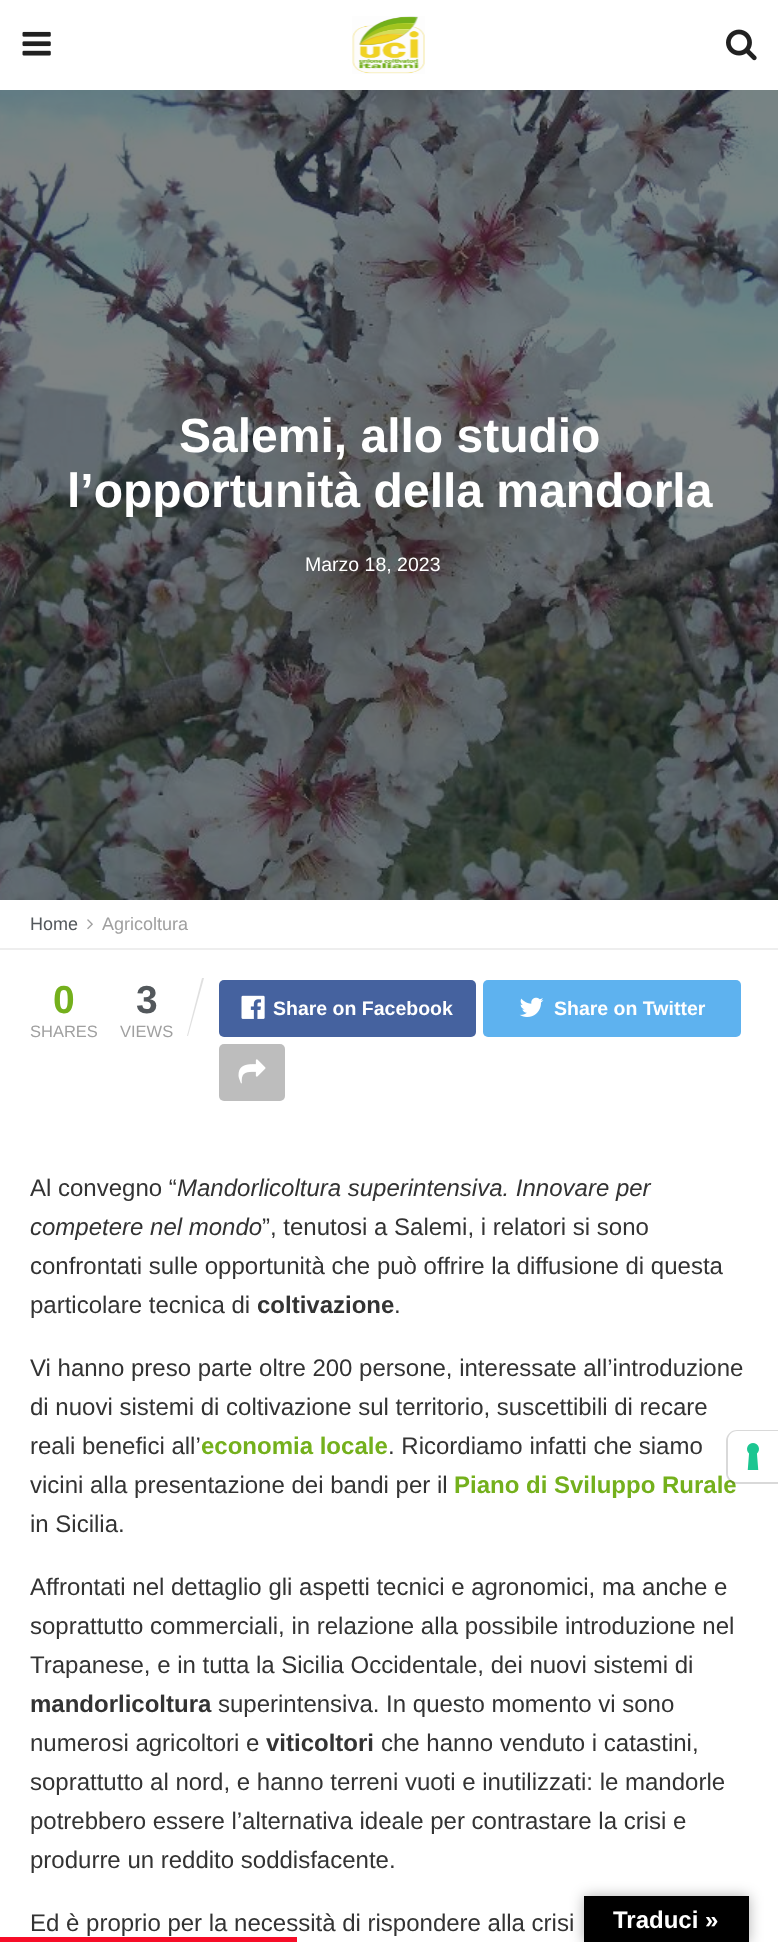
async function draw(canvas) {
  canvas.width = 778
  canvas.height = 1942
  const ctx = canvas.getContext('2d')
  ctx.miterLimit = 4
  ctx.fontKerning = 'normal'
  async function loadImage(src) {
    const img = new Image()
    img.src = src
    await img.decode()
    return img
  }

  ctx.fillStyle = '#fff'
  ctx.fillRect(0, 0, 778, 1942)
  ctx.drawImage(await loadImage('image0.png'), 22, 31, 29, 25)
  ctx.drawImage(await loadImage('image1.png'), 352, 16, 73, 58)
  ctx.drawImage(await loadImage('image2.png'), 726, 29, 31, 32)
  ctx.fillStyle = '#293132'
  ctx.fillRect(0, 90, 778, 810)
  ctx.drawImage(await loadImage('image3.png'), 0, 90, 778, 810)
  ctx.font = 'bold 48px Liberation Sans'
  ctx.fillStyle = '#fff'
  ctx.fillText('Salemi, allo studio', 179, 452)
  ctx.fillText('l’opportunità della mandorla', 67, 507)
  ctx.font = '19.5px Liberation Sans'
  ctx.fillText('Marzo 18, 2023', 305, 571)
  ctx.fillStyle = '#eee'
  ctx.fillRect(0, 948, 778, 2)
  ctx.font = '18px Liberation Sans'
  ctx.fillStyle = '#53585c'
  ctx.fillText('Home', 30, 930)
  ctx.drawImage(await loadImage('image4.png'), 87, 919, 6, 11)
  ctx.fillStyle = '#a0a0a0'
  ctx.fillText('Agricoltura', 102, 930)
  ctx.font = 'bold 39px Liberation Sans'
  ctx.fillStyle = '#74b01c'
  ctx.fillText('0', 53, 1013)
  ctx.font = '16.5px Liberation Sans'
  ctx.fillStyle = '#a0a0a0'
  ctx.fillText('SHARES', 30, 1037)
  ctx.font = 'bold 39px Liberation Sans'
  ctx.fillStyle = '#53585c'
  ctx.fillText('3', 136, 1013)
  ctx.fillStyle = '#e0e0e0'
  ctx.beginPath()
  ctx.moveTo(202, 978)
  ctx.lineTo(204, 978)
  ctx.lineTo(188, 1036)
  ctx.lineTo(187, 1036)
  ctx.closePath()
  ctx.fill()
  ctx.font = '16.5px Liberation Sans'
  ctx.fillStyle = '#a0a0a0'
  ctx.fillText('VIEWS', 120, 1037)
  ctx.fillStyle = '#45629f'
  ctx.beginPath()
  ctx.roundRect(219, 980, 257, 57, 5)
  ctx.fill()
  ctx.drawImage(await loadImage('image5.png'), 241, 995, 24, 24)
  ctx.font = 'bold 19.5px Liberation Sans'
  ctx.fillStyle = '#fff'
  ctx.fillText('Share on Facebook', 273, 1015)
  ctx.fillStyle = '#5eb2ef'
  ctx.beginPath()
  ctx.roundRect(483, 980, 258, 57, 5)
  ctx.fill()
  ctx.drawImage(await loadImage('image6.png'), 519, 997, 25, 20)
  ctx.fillStyle = '#fff'
  ctx.fillText('Share on Twitter', 554, 1015)
  ctx.fillStyle = '#bdbdbd'
  ctx.beginPath()
  ctx.roundRect(219, 1044, 66, 57, 5)
  ctx.fill()
  ctx.drawImage(await loadImage('image7.png'), 238, 1059, 28, 25)
  ctx.font = '24px Liberation Sans'
  ctx.fillStyle = '#333'
  ctx.fillText('Al convegno “', 30, 1196)
  ctx.font = 'italic 24px Liberation Sans'
  ctx.fillText('Mandorlicoltura superintensiva. Innovare per', 177, 1196)
  ctx.fillText('competere nel mondo', 30, 1235)
  ctx.font = '24px Liberation Sans'
  ctx.fillText('”, tenutosi a Salemi, i relatori si sono', 262, 1235)
  ctx.fillText('confrontati sulle opportunità che può offrire la diffusione di questa', 30, 1274)
  ctx.fillText('particolare tecnica di', 30, 1313)
  ctx.font = 'bold 24px Liberation Sans'
  ctx.fillText('coltivazione', 257, 1313)
  ctx.font = '24px Liberation Sans'
  ctx.fillText('.', 394, 1313)
  ctx.fillText('Vi hanno preso parte oltre 200 persone, interessate all’introduzione', 30, 1376)
  ctx.fillText('di nuovi sistemi di coltivazione sul territorio, suscettibili di recare', 30, 1415)
  ctx.fillText('reali benefici all’', 30, 1454)
  ctx.font = 'bold 24px Liberation Sans'
  ctx.fillStyle = '#74b01c'
  ctx.fillText('economia locale', 201, 1454)
  ctx.font = '24px Liberation Sans'
  ctx.fillStyle = '#333'
  ctx.fillText('. Ricordiamo infatti che siamo', 388, 1454)
  ctx.fillText('vicini alla presentazione dei bandi per il', 30, 1493)
  ctx.font = 'bold 24px Liberation Sans'
  ctx.fillStyle = '#74b01c'
  ctx.fillText('Piano di Sviluppo Rurale', 454, 1493)
  ctx.font = '24px Liberation Sans'
  ctx.fillStyle = '#333'
  ctx.fillText('in Sicilia.', 30, 1532)
  ctx.fillText('Affrontati nel dettaglio gli aspetti tecnici e agronomici, ma anche e', 30, 1595)
  ctx.fillText('soprattutto commerciali, in relazione alla possibile introduzione nel', 30, 1634)
  ctx.fillText('Trapanese, e in tutta la Sicilia Occidentale, dei nuovi sistemi di', 30, 1673)
  ctx.font = 'bold 24px Liberation Sans'
  ctx.fillText('mandorlicoltura', 30, 1712)
  ctx.font = '24px Liberation Sans'
  ctx.fillText('superintensiva. In questo momento vi sono', 218, 1712)
  ctx.fillText('numerosi agricoltori e', 30, 1751)
  ctx.font = 'bold 24px Liberation Sans'
  ctx.fillText('viticoltori', 266, 1751)
  ctx.font = '24px Liberation Sans'
  ctx.fillText('che hanno venduto i catastini,', 381, 1751)
  ctx.fillText('soprattutto al nord, e hanno terreni vuoti e inutilizzati: le mandorle', 30, 1790)
  ctx.fillText('potrebbero essere l’alternativa ideale per contrastare la crisi e', 30, 1829)
  ctx.fillText('produrre un reddito soddisfacente.', 30, 1868)
  ctx.fillText('Ed è proprio per la necessità di rispondere alla crisi', 30, 1931)
  ctx.beginPath()
  ctx.moveTo(737, 1431)
  ctx.lineTo(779, 1431)
  ctx.lineTo(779, 1483)
  ctx.lineTo(737, 1483)
  ctx.bezierCurveTo(731.5, 1483, 727, 1478.5, 727, 1473)
  ctx.lineTo(727, 1441)
  ctx.bezierCurveTo(727, 1435.5, 731.5, 1431, 737, 1431)
  ctx.closePath()
  ctx.strokeStyle = '#00000026'
  ctx.lineWidth = 2
  ctx.stroke()
  ctx.fillStyle = '#fff'
  ctx.beginPath()
  ctx.moveTo(737, 1431)
  ctx.lineTo(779, 1431)
  ctx.lineTo(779, 1482)
  ctx.lineTo(737, 1482)
  ctx.bezierCurveTo(732, 1482, 728, 1478, 728, 1473)
  ctx.lineTo(728, 1440)
  ctx.bezierCurveTo(728, 1435, 732, 1431, 737, 1431)
  ctx.closePath()
  ctx.fill()
  ctx.drawImage(await loadImage('image8.png'), 747, 1443, 12, 27)
  ctx.fillStyle = '#0000004d'
  ctx.filter = 'blur(7px)'
  ctx.beginPath()
  ctx.rect(584, 1896, 165, 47)
  ctx.fill()
  ctx.filter = 'none'
  ctx.fillStyle = '#000'
  ctx.fillRect(584, 1896, 165, 46)
  ctx.font = 'bold 24px Liberation Sans'
  ctx.fillStyle = '#fff'
  ctx.fillText('Traduci »', 613, 1928)
  ctx.fillStyle = '#f70d28'
  ctx.fillRect(0, 1937, 297, 5)
}

draw(document.querySelector('canvas'))
